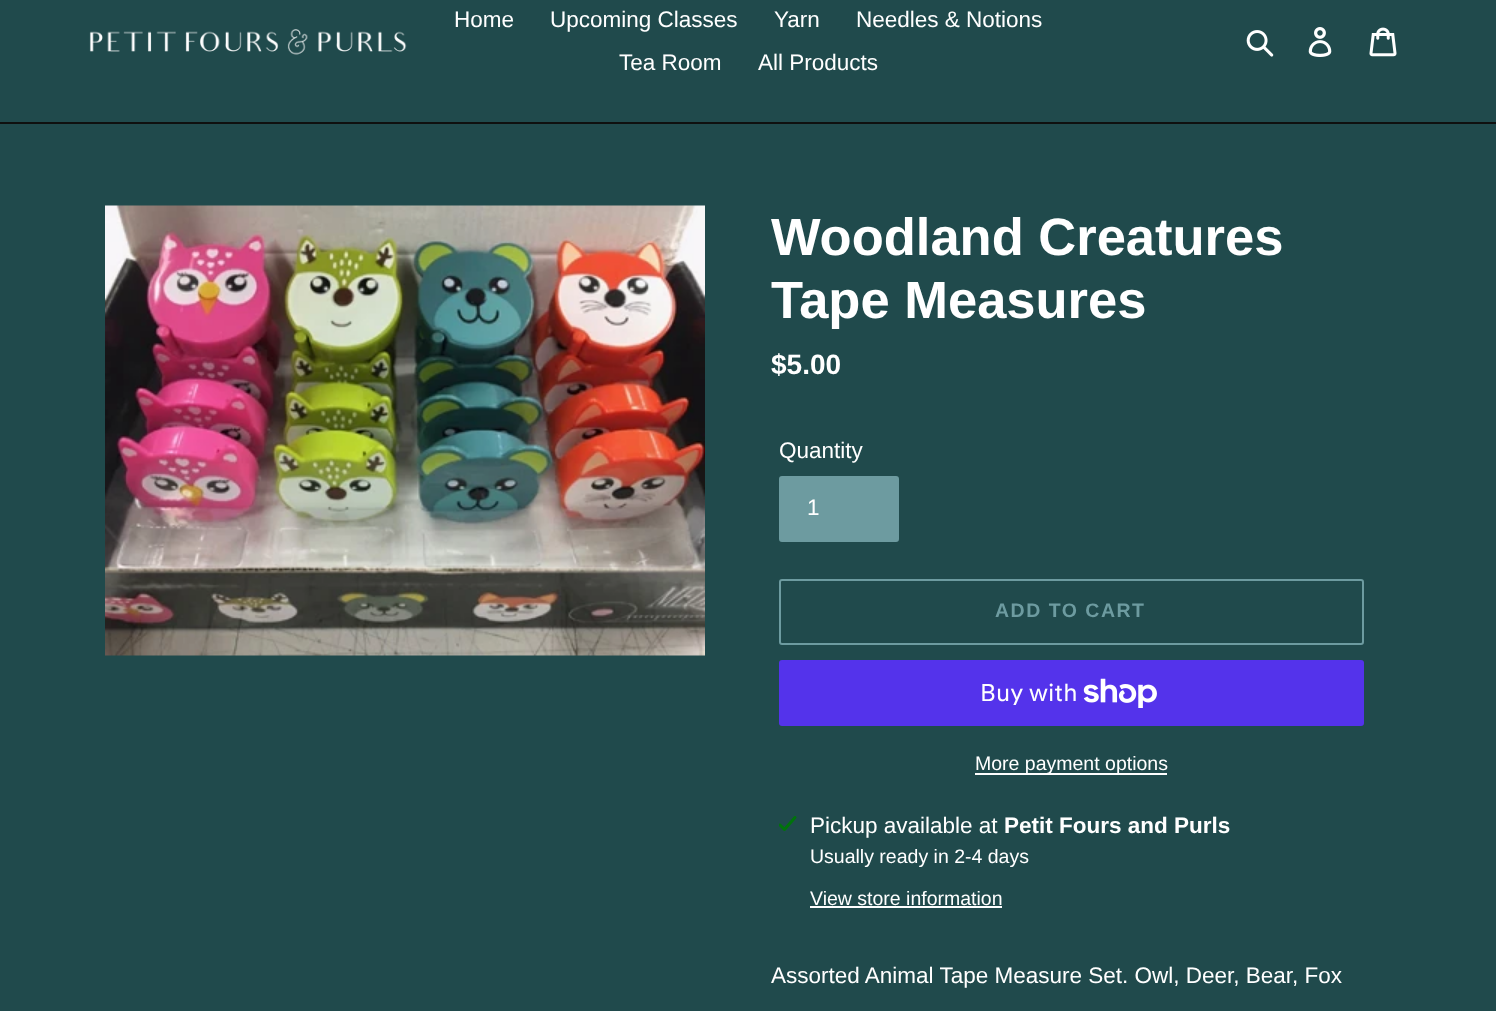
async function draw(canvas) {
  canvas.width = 1496
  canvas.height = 1011
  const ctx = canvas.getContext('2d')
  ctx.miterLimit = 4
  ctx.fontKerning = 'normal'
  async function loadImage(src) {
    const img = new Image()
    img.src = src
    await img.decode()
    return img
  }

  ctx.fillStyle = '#204a4c'
  ctx.fillRect(0, 0, 1496, 1011)
  ctx.fillStyle = '#0f100f'
  ctx.fillRect(0, 122, 1496, 2)
  ctx.drawImage(await loadImage('image0.png'), 89, 29, 318, 26)
  ctx.font = '22.5px Liberation Sans'
  ctx.fillStyle = '#fff'
  ctx.fillText('Home', 454, 27)
  ctx.fillText('Upcoming Classes', 550, 27)
  ctx.fillText('Yarn', 774, 27)
  ctx.fillText('Needles & Notions', 856, 27)
  ctx.fillText('Tea Room', 619, 70)
  ctx.fillText('All Products', 758, 70)
  ctx.drawImage(await loadImage('image1.png'), 1246, 30, 28, 27)
  ctx.drawImage(await loadImage('image2.png'), 1308, 27, 24, 30)
  ctx.drawImage(await loadImage('image3.png'), 1369, 27, 28, 30)
  ctx.drawImage(await loadImage('image4.png'), 105, 205, 600, 451)
  ctx.font = 'bold 52.5px Liberation Sans'
  ctx.fillText('Woodland Creatures', 771, 255)
  ctx.fillText('Tape Measures', 771, 318)
  ctx.font = 'bold 28px Liberation Sans'
  ctx.fillText('$5.00', 771, 374)
  ctx.font = '22.5px Liberation Sans'
  ctx.fillText('Quantity', 779, 458)
  ctx.fillStyle = '#6d9ba0'
  ctx.beginPath()
  ctx.roundRect(780, 477, 118, 64, 2)
  ctx.fill()
  ctx.strokeStyle = '#6d9ba0'
  ctx.lineWidth = 2
  ctx.stroke()
  ctx.fillStyle = '#fff'
  ctx.fillText('1', 807, 515)
  ctx.beginPath()
  ctx.roundRect(780, 580, 583, 64, 2)
  ctx.stroke()
  ctx.letterSpacing = '1.5px'
  ctx.font = 'bold 19.5px Liberation Sans'
  ctx.fillStyle = '#6d9ba0'
  ctx.fillText('ADD TO CART', 995, 617)
  ctx.fillStyle = '#5433eb'
  ctx.beginPath()
  ctx.roundRect(779, 660, 585, 66, 3)
  ctx.fill()
  ctx.letterSpacing = '0px'
  ctx.font = '24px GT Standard'
  ctx.fillStyle = '#fff'
  ctx.fillText('Buy with', 980, 701)
  ctx.drawImage(await loadImage('image5.png'), 1083, 678, 74, 30)
  ctx.fillRect(975, 773, 192, 2)
  ctx.font = '19.5px Liberation Sans'
  ctx.fillText('More payment options', 975, 770)
  ctx.drawImage(await loadImage('image6.png'), 779, 816, 18, 15)
  ctx.font = '22.5px Liberation Sans'
  ctx.fillText('Pickup available at', 810, 833)
  ctx.font = 'bold 22.5px Liberation Sans'
  ctx.fillText('Petit Fours and Purls', 1004, 833)
  ctx.font = '19.5px Liberation Sans'
  ctx.fillText('Usually ready in 2-4 days', 810, 863)
  ctx.fillText('View store information', 810, 905)
  ctx.fillRect(810, 906, 192, 2)
  ctx.font = '22.5px Liberation Sans'
  ctx.fillText('Assorted Animal Tape Measure Set. Owl, Deer, Bear, Fox', 771, 983)
}

draw(document.querySelector('canvas'))
